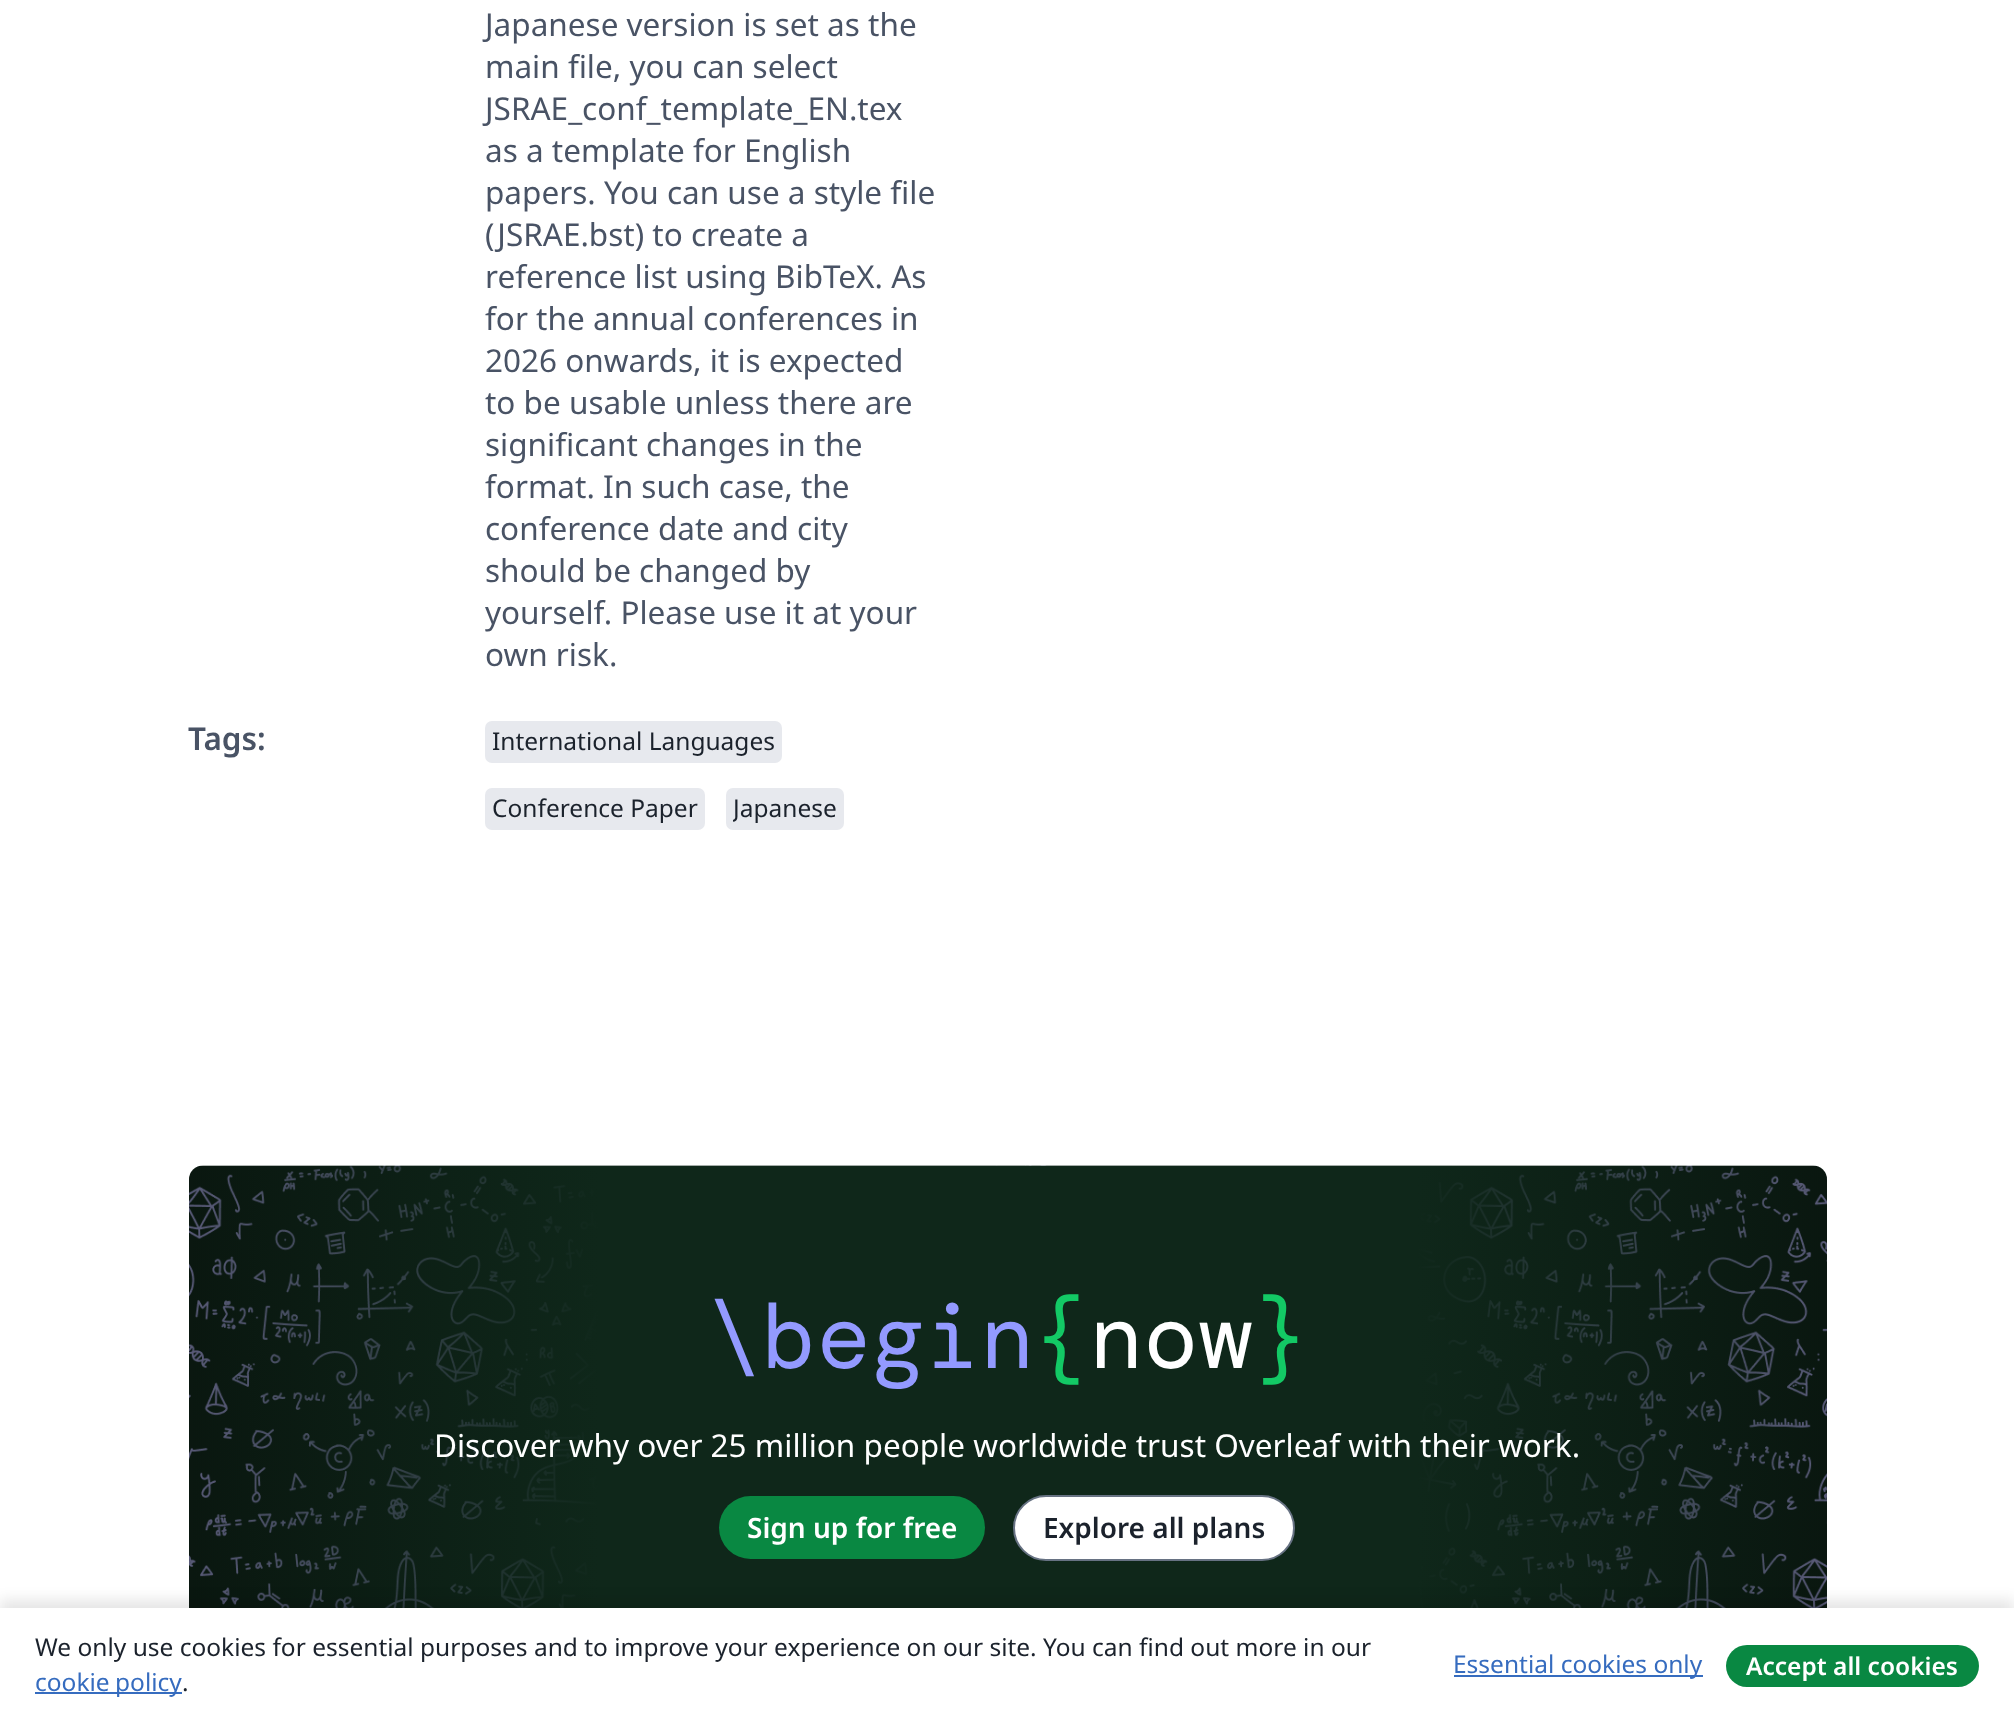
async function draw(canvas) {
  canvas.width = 2014
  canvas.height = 1719
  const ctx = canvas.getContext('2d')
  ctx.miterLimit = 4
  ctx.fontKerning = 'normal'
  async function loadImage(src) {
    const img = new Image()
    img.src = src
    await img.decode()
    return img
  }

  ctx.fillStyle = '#fff'
  ctx.fillRect(0, 0, 2014, 1719)
  ctx.font = '31.5px Noto Sans'
  ctx.fillStyle = '#495365'
  ctx.fillText('Japanese version is set as the', 485, 36)
  ctx.fillText('main file, you can select', 485, 78)
  ctx.fillText('JSRAE_conf_template_EN.tex', 485, 120)
  ctx.fillText('as a template for English', 485, 162)
  ctx.fillText('papers. You can use a style file', 485, 204)
  ctx.fillText('(JSRAE.bst) to create a', 485, 246)
  ctx.fillText('reference list using BibTeX. As', 485, 288)
  ctx.fillText('for the annual conferences in', 485, 330)
  ctx.fillText('2026 onwards, it is expected', 485, 372)
  ctx.fillText('to be usable unless there are', 485, 414)
  ctx.fillText('significant changes in the', 485, 456)
  ctx.fillText('format. In such case, the', 485, 498)
  ctx.fillText('conference date and city', 485, 540)
  ctx.fillText('should be changed by', 485, 582)
  ctx.fillText('yourself. Please use it at your', 485, 624)
  ctx.fillText('own risk.', 485, 666)
  ctx.font = '600 31.5px Noto Sans'
  ctx.fillText('Tags:', 188, 750)
  ctx.fillStyle = '#e7e9ee'
  ctx.beginPath()
  ctx.roundRect(485, 721, 297, 42, 7)
  ctx.fill()
  ctx.font = '24.5px Noto Sans'
  ctx.fillStyle = '#1b222c'
  ctx.fillText('International Languages', 492, 750)
  ctx.fillStyle = '#e7e9ee'
  ctx.beginPath()
  ctx.roundRect(485, 788, 220, 42, 7)
  ctx.fill()
  ctx.fillStyle = '#1b222c'
  ctx.fillText('Conference Paper', 492, 817)
  ctx.fillStyle = '#e7e9ee'
  ctx.beginPath()
  ctx.roundRect(726, 788, 118, 42, 7)
  ctx.fill()
  ctx.save()
  ctx.beginPath()
  ctx.rect(733, 788, 104, 42)
  ctx.clip()
  ctx.fillStyle = '#1b222c'
  ctx.fillText('Japanese', 733, 817)
  ctx.restore()
  ctx.drawImage(await loadImage('image0.png'), 189, 1165, 1638, 443)
  ctx.font = '91px DM Mono'
  ctx.fillStyle = '#939aff'
  ctx.fillText('\\begin', 707, 1368)
  ctx.fillStyle = '#13c965'
  ctx.fillText('{', 1034, 1368)
  ctx.fillStyle = '#fff'
  ctx.fillText('now', 1089, 1368)
  ctx.fillStyle = '#13c965'
  ctx.fillText('}', 1253, 1368)
  ctx.font = '31.5px Noto Sans'
  ctx.fillStyle = '#fff'
  ctx.fillText('Discover why over 25 million people worldwide trust Overleaf with their work.', 434, 1457)
  ctx.fillStyle = '#098842'
  ctx.beginPath()
  ctx.roundRect(719, 1496, 266, 63, 31.5)
  ctx.fill()
  ctx.font = '600 28px Noto Sans'
  ctx.fillStyle = '#fff'
  ctx.fillText('Sign up for free', 747, 1538)
  ctx.beginPath()
  ctx.roundRect(1014, 1496, 280, 64, 32)
  ctx.fill()
  ctx.strokeStyle = '#677283'
  ctx.lineWidth = 2
  ctx.stroke()
  ctx.fillStyle = '#1b222c'
  ctx.fillText('Explore all plans', 1043, 1538)
  ctx.fillStyle = '#0000001a'
  ctx.filter = 'blur(7px)'
  ctx.beginPath()
  ctx.rect(0, 1600, 2014, 112)
  ctx.fill()
  ctx.filter = 'none'
  ctx.fillStyle = '#fff'
  ctx.fillRect(0, 1608, 2014, 111)
  ctx.font = '24.5px Noto Sans'
  ctx.fillStyle = '#1b222c'
  ctx.fillText('We only use cookies for essential purposes and to improve your experience on our site. You can find out more in our', 35, 1656)
  ctx.fillStyle = '#366cbf'
  ctx.fillRect(35, 1692, 147, 2)
  ctx.wordSpacing = '-1px'
  ctx.fillText('cookie policy', 35, 1691)
  ctx.wordSpacing = '0px'
  ctx.fillStyle = '#1b222c'
  ctx.fillText('.', 182, 1691)
  ctx.fillStyle = '#366cbf'
  ctx.fillRect(1454, 1675, 249, 2)
  ctx.fillText('Essential cookies only', 1453, 1673)
  ctx.fillStyle = '#098842'
  ctx.beginPath()
  ctx.roundRect(1726, 1645, 253, 42, 21)
  ctx.fill()
  ctx.font = '600 24.5px Noto Sans'
  ctx.fillStyle = '#fff'
  ctx.fillText('Accept all cookies', 1746, 1675)
}

draw(document.querySelector('canvas'))
